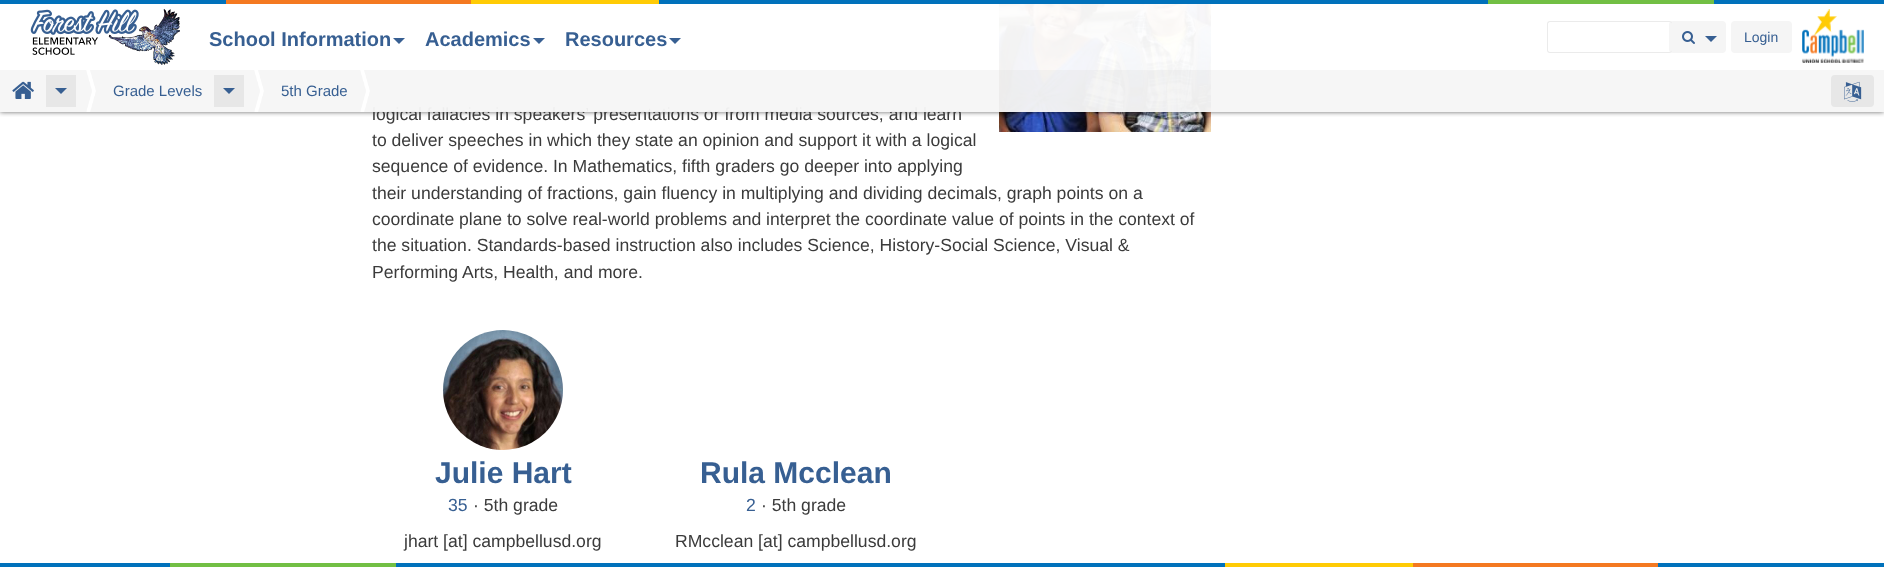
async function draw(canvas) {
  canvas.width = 1884
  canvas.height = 567
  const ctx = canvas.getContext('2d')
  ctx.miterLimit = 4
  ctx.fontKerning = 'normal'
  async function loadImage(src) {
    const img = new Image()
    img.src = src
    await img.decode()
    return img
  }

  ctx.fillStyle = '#fff'
  ctx.fillRect(0, 0, 1884, 567)
  ctx.drawImage(await loadImage('image6.png'), 999, 4, 212, 128)
  ctx.save()
  ctx.beginPath()
  ctx.rect(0, 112, 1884, 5)
  ctx.clip()
  ctx.fillStyle = '#00000099'
  ctx.filter = 'blur(2.5px)'
  ctx.beginPath()
  ctx.rect(0, 0, 1884, 112)
  ctx.fill()
  ctx.filter = 'none'
  ctx.restore()
  ctx.fillStyle = '#0071bb'
  ctx.fillRect(0, 0, 1884, 4)
  ctx.fillStyle = '#f47921'
  ctx.fillRect(226, 0, 245, 4)
  ctx.fillStyle = '#ffcb05'
  ctx.fillRect(471, 0, 188, 4)
  ctx.fillStyle = '#72bf44'
  ctx.fillRect(1488, 0, 226, 4)
  ctx.font = '17.6px Liberation Sans'
  ctx.fillStyle = '#3b3b3b'
  ctx.fillText('logical fallacies in speakers’ presentations or from media sources, and learn', 372, 120)
  ctx.fillStyle = '#fffffff2'
  ctx.fillRect(373, 4, 838, 108)
  ctx.drawImage(await loadImage('image0.png'), 30, 9, 150, 56)
  ctx.font = 'bold 20px Liberation Sans'
  ctx.fillStyle = '#375f92'
  ctx.fillText('School Information', 209, 46)
  ctx.beginPath()
  ctx.moveTo(393, 38)
  ctx.lineTo(405, 38)
  ctx.lineTo(399, 44)
  ctx.closePath()
  ctx.fill()
  ctx.fillText('Academics', 425, 46)
  ctx.beginPath()
  ctx.moveTo(533, 38)
  ctx.lineTo(545, 38)
  ctx.lineTo(539, 44)
  ctx.closePath()
  ctx.fill()
  ctx.fillText('Resources', 565, 46)
  ctx.beginPath()
  ctx.moveTo(669, 38)
  ctx.lineTo(681, 38)
  ctx.lineTo(675, 44)
  ctx.closePath()
  ctx.fill()
  ctx.fillStyle = '#ebebeb'
  ctx.beginPath()
  ctx.moveTo(1550, 21)
  ctx.lineTo(1669, 21)
  ctx.bezierCurveTo(1671, 21, 1672, 22, 1672, 24)
  ctx.lineTo(1672, 50)
  ctx.bezierCurveTo(1672, 52, 1671, 53, 1669, 53)
  ctx.lineTo(1550, 53)
  ctx.bezierCurveTo(1548, 53, 1547, 52, 1547, 50)
  ctx.lineTo(1547, 24)
  ctx.bezierCurveTo(1547, 22, 1548, 21, 1550, 21)
  ctx.closePath()
  ctx.moveTo(1550, 22)
  ctx.lineTo(1669, 22)
  ctx.bezierCurveTo(1671, 22, 1672, 23, 1672, 24)
  ctx.lineTo(1672, 50)
  ctx.bezierCurveTo(1672, 51, 1671, 52, 1669, 52)
  ctx.lineTo(1550, 52)
  ctx.bezierCurveTo(1549, 52, 1548, 51, 1548, 50)
  ctx.lineTo(1548, 24)
  ctx.bezierCurveTo(1548, 23, 1549, 22, 1550, 22)
  ctx.closePath()
  ctx.fill('evenodd')
  ctx.fillStyle = '#e6e6e666'
  ctx.beginPath()
  ctx.roundRect(1669, 21, 27, 32, [4, 0, 0, 4])
  ctx.fill()
  ctx.drawImage(await loadImage('image1.png'), 1682, 31, 13, 13)
  ctx.fillStyle = '#f5f5f5'
  ctx.beginPath()
  ctx.roundRect(1696, 21, 30, 32, [0, 4, 4, 0])
  ctx.fill()
  ctx.fillStyle = '#375f92'
  ctx.beginPath()
  ctx.moveTo(1705, 36)
  ctx.lineTo(1717, 36)
  ctx.lineTo(1711, 42)
  ctx.closePath()
  ctx.fill()
  ctx.fillStyle = '#f5f5f5'
  ctx.beginPath()
  ctx.roundRect(1731, 21, 61, 32, 4)
  ctx.fill()
  ctx.font = '14px Liberation Sans'
  ctx.fillStyle = '#375f92'
  ctx.fillText('Login', 1744, 42)
  ctx.drawImage(await loadImage('image2.png'), 1802, 9, 62, 54)
  ctx.fillStyle = '#dcdcdc40'
  ctx.fillRect(0, 70, 1884, 42)
  ctx.drawImage(await loadImage('image3.png'), 12, 81, 22, 18)
  ctx.fillStyle = '#e7e7e7'
  ctx.fillRect(46, 75, 30, 32)
  ctx.fillStyle = '#375f92'
  ctx.beginPath()
  ctx.moveTo(55, 88)
  ctx.lineTo(67, 88)
  ctx.lineTo(61, 94)
  ctx.closePath()
  ctx.fill()
  ctx.drawImage(await loadImage('image4.png'), 86, 70, 10, 42)
  ctx.font = '15px Liberation Sans'
  ctx.fillText('Grade Levels', 113, 96)
  ctx.fillStyle = '#e7e7e7'
  ctx.fillRect(214, 75, 30, 32)
  ctx.fillStyle = '#375f92'
  ctx.beginPath()
  ctx.moveTo(223, 88)
  ctx.lineTo(235, 88)
  ctx.lineTo(229, 94)
  ctx.closePath()
  ctx.fill()
  ctx.drawImage(await loadImage('image4.png'), 254, 70, 10, 42)
  ctx.fillText('5th Grade', 281, 96)
  ctx.drawImage(await loadImage('image4.png'), 360, 70, 10, 42)
  ctx.fillStyle = '#e7e7e7'
  ctx.beginPath()
  ctx.roundRect(1831, 75, 43, 32, 4)
  ctx.fill()
  ctx.drawImage(await loadImage('image5.png'), 1844, 81, 18, 21)
  ctx.font = '17.6px Liberation Sans'
  ctx.fillStyle = '#3b3b3b'
  ctx.fillText('to deliver speeches in which they state an opinion and support it with a logical', 372, 146)
  ctx.fillText('sequence of evidence. In Mathematics, fifth graders go deeper into applying', 372, 172)
  ctx.fillText('their understanding of fractions, gain fluency in multiplying and dividing decimals, graph points on a', 372, 199)
  ctx.fillText('coordinate plane to solve real-world problems and interpret the coordinate value of points in the context of', 372, 225)
  ctx.fillText('the situation. Standards-based instruction also includes Science, History-Social Science, Visual &', 372, 251)
  ctx.fillText('Performing Arts, Health, and more.', 372, 278)
  ctx.drawImage(await loadImage('image7.png'), 443, 330, 120, 120)
  ctx.font = 'bold 30px Liberation Sans'
  ctx.fillStyle = '#375f92'
  ctx.fillText('Julie Hart', 435, 483)
  ctx.font = '17.6px Liberation Sans'
  ctx.fillText('35', 448, 511)
  ctx.fillStyle = '#3b3b3b'
  ctx.fillText('· 5th grade', 473, 511)
  ctx.fillText('jhart [at] campbellusd.org', 404, 547)
  ctx.font = 'bold 30px Liberation Sans'
  ctx.fillStyle = '#375f92'
  ctx.fillText('Rula Mcclean', 700, 483)
  ctx.font = '17.6px Liberation Sans'
  ctx.fillText('2', 746, 511)
  ctx.fillStyle = '#3b3b3b'
  ctx.fillText('· 5th grade', 761, 511)
  ctx.fillText('RMcclean [at] campbellusd.org', 675, 547)
  ctx.fillStyle = '#0071bb'
  ctx.fillRect(0, 563, 1884, 4)
  ctx.fillStyle = '#f47921'
  ctx.fillRect(1413, 563, 245, 4)
  ctx.fillStyle = '#ffcb05'
  ctx.fillRect(1225, 563, 188, 4)
  ctx.fillStyle = '#72bf44'
  ctx.fillRect(170, 563, 226, 4)
}

draw(document.querySelector('canvas'))
